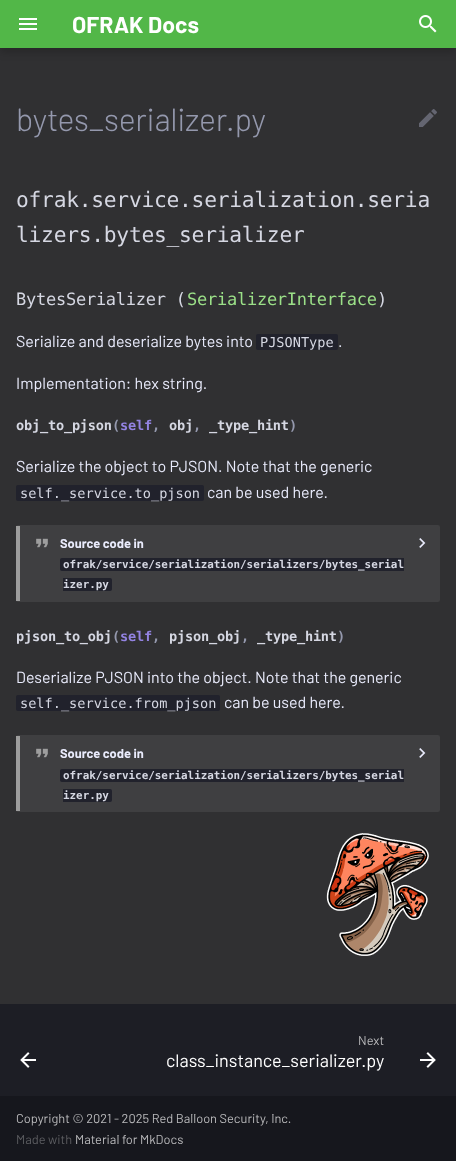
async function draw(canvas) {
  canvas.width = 456
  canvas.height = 1161
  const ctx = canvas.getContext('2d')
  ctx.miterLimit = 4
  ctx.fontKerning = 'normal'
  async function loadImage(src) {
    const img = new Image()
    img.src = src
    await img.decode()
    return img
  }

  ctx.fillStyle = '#303032'
  ctx.fillRect(0, 0, 456, 1161)
  ctx.fillStyle = '#00000033'
  ctx.filter = 'blur(4px)'
  ctx.beginPath()
  ctx.rect(0, 4, 456, 48)
  ctx.fill()
  ctx.filter = 'none'
  ctx.fillStyle = '#52b748'
  ctx.fillRect(0, 0, 456, 48)
  ctx.drawImage(await loadImage('image0.png'), 19, 18, 18, 12)
  ctx.font = 'bold 23px Barlow'
  ctx.fillStyle = '#fff'
  ctx.fillText('OFRAK Docs', 72, 33)
  ctx.drawImage(await loadImage('image1.png'), 419, 15, 18, 18)
  ctx.letterSpacing = '-0.3px'
  ctx.font = '300 32px Barlow'
  ctx.fillStyle = '#9498ad'
  ctx.fillText('bytes_serializer.py', 16, 131)
  ctx.drawImage(await loadImage('image2.png'), 419, 109, 18, 18)
  ctx.letterSpacing = '-0.25px'
  ctx.font = '21.25px DejaVu Sans Mono'
  ctx.fillStyle = '#d5d7e2'
  ctx.fillText('ofrak.service.serialization.seria', 16, 207)
  ctx.fillText('lizers.bytes_serializer', 16, 242)
  ctx.font = '17px DejaVu Sans Mono'
  ctx.fillText('BytesSerializer (', 16, 305)
  ctx.fillStyle = '#9be088'
  ctx.fillText('SerializerInterface', 187, 305)
  ctx.fillStyle = '#d5d7e2'
  ctx.fillText(')', 377, 305)
  ctx.letterSpacing = '0px'
  ctx.font = '16px Barlow'
  ctx.fillStyle = '#e9ebfc'
  ctx.fillText('Serialize and deserialize bytes into', 16, 347)
  ctx.fillStyle = '#21222c'
  ctx.beginPath()
  ctx.roundRect(256, 334, 82, 16, 2)
  ctx.fill()
  ctx.font = '13.6px DejaVu Sans Mono'
  ctx.fillStyle = '#d5d7e2'
  ctx.fillText('PJSONType', 260, 347)
  ctx.font = '16px Barlow'
  ctx.fillStyle = '#e9ebfc'
  ctx.fillText('.', 338, 347)
  ctx.fillText('Implementation: hex string.', 16, 389)
  ctx.letterSpacing = '-0.2px'
  ctx.font = 'bold 13.6px DejaVu Sans Mono'
  ctx.fillStyle = '#d5d7e2'
  ctx.fillText('obj_to_pjson', 16, 430)
  ctx.fillStyle = '#9498ad'
  ctx.fillText('(', 112, 430)
  ctx.fillStyle = '#9383e2'
  ctx.fillText('self', 120, 430)
  ctx.fillStyle = '#9498ad'
  ctx.fillText(',', 152, 430)
  ctx.fillStyle = '#d5d7e2'
  ctx.fillText('obj', 169, 430)
  ctx.fillStyle = '#9498ad'
  ctx.fillText(',', 193, 430)
  ctx.fillStyle = '#d5d7e2'
  ctx.fillText('_type_hint', 209, 430)
  ctx.fillStyle = '#9498ad'
  ctx.fillText(')', 289, 430)
  ctx.letterSpacing = '0px'
  ctx.font = '16px Barlow'
  ctx.fillStyle = '#e9ebfc'
  ctx.fillText('Serialize the object to PJSON. Note that the generic', 16, 472)
  ctx.fillStyle = '#21222c'
  ctx.beginPath()
  ctx.roundRect(16, 485, 188, 16, 2)
  ctx.fill()
  ctx.font = '13.6px DejaVu Sans Mono'
  ctx.fillStyle = '#d5d7e2'
  ctx.fillText('self._service.to_pjson', 20, 498)
  ctx.font = '16px Barlow'
  ctx.fillStyle = '#e9ebfc'
  ctx.fillText('can be used here.', 207, 498)
  ctx.fillStyle = '#353537'
  ctx.beginPath()
  ctx.roundRect(16, 525, 424, 77, 2)
  ctx.fill()
  ctx.fillStyle = '#9e9e9e'
  ctx.fillRect(16, 526, 4, 75)
  ctx.fillStyle = '#9e9e9e1a'
  ctx.beginPath()
  ctx.roundRect(16, 525, 424, 77, 2)
  ctx.fill()
  ctx.drawImage(await loadImage('image3.png'), 36, 538, 12, 10)
  ctx.font = 'bold 12.8px Barlow'
  ctx.fillStyle = '#e9ebfc'
  ctx.fillText('Source code in', 60, 548)
  ctx.drawImage(await loadImage('image4.png'), 419, 538, 7, 10)
  ctx.fillStyle = '#21222c'
  ctx.beginPath()
  ctx.roundRect(60, 558, 344, 13, [2, 0, 0, 2])
  ctx.fill()
  ctx.font = 'bold 10.9px DejaVu Sans Mono'
  ctx.fillStyle = '#d5d7e2'
  ctx.fillText('ofrak/service/serialization/serializers/bytes_serial', 63, 568)
  ctx.fillStyle = '#21222c'
  ctx.beginPath()
  ctx.roundRect(63, 578, 49, 13, [0, 2, 2, 0])
  ctx.fill()
  ctx.fillStyle = '#d5d7e2'
  ctx.fillText('izer.py', 63, 588)
  ctx.letterSpacing = '-0.2px'
  ctx.font = 'bold 13.6px DejaVu Sans Mono'
  ctx.fillText('pjson_to_obj', 16, 641)
  ctx.fillStyle = '#9498ad'
  ctx.fillText('(', 112, 641)
  ctx.fillStyle = '#9383e2'
  ctx.fillText('self', 120, 641)
  ctx.fillStyle = '#9498ad'
  ctx.fillText(',', 152, 641)
  ctx.fillStyle = '#d5d7e2'
  ctx.fillText('pjson_obj', 169, 641)
  ctx.fillStyle = '#9498ad'
  ctx.fillText(',', 241, 641)
  ctx.fillStyle = '#d5d7e2'
  ctx.fillText('_type_hint', 257, 641)
  ctx.fillStyle = '#9498ad'
  ctx.fillText(')', 337, 641)
  ctx.letterSpacing = '0px'
  ctx.font = '16px Barlow'
  ctx.fillStyle = '#e9ebfc'
  ctx.fillText('Deserialize PJSON into the object. Note that the generic', 16, 683)
  ctx.fillStyle = '#21222c'
  ctx.beginPath()
  ctx.roundRect(16, 695, 204, 16, 2)
  ctx.fill()
  ctx.font = '13.6px DejaVu Sans Mono'
  ctx.fillStyle = '#d5d7e2'
  ctx.fillText('self._service.from_pjson', 20, 708)
  ctx.font = '16px Barlow'
  ctx.fillStyle = '#e9ebfc'
  ctx.fillText('can be used here.', 224, 708)
  ctx.fillStyle = '#353537'
  ctx.beginPath()
  ctx.roundRect(16, 735, 424, 77, 2)
  ctx.fill()
  ctx.fillStyle = '#9e9e9e'
  ctx.fillRect(16, 736, 4, 75)
  ctx.fillStyle = '#9e9e9e1a'
  ctx.beginPath()
  ctx.roundRect(16, 735, 424, 77, 2)
  ctx.fill()
  ctx.drawImage(await loadImage('image3.png'), 36, 748, 12, 10)
  ctx.font = 'bold 12.8px Barlow'
  ctx.fillStyle = '#e9ebfc'
  ctx.fillText('Source code in', 60, 758)
  ctx.drawImage(await loadImage('image4.png'), 419, 748, 7, 10)
  ctx.fillStyle = '#21222c'
  ctx.beginPath()
  ctx.roundRect(60, 769, 344, 13, [2, 0, 0, 2])
  ctx.fill()
  ctx.font = 'bold 10.9px DejaVu Sans Mono'
  ctx.fillStyle = '#d5d7e2'
  ctx.fillText('ofrak/service/serialization/serializers/bytes_serial', 63, 779)
  ctx.fillStyle = '#21222c'
  ctx.beginPath()
  ctx.roundRect(63, 789, 49, 13, [0, 2, 2, 0])
  ctx.fill()
  ctx.fillStyle = '#d5d7e2'
  ctx.fillText('izer.py', 63, 799)
  ctx.drawImage(await loadImage('image5.png'), 326, 833, 103, 123)
  ctx.fillStyle = '#1d1e25'
  ctx.fillRect(0, 1004, 456, 92)
  ctx.drawImage(await loadImage('image6.png'), 20, 1052, 16, 16)
  ctx.font = '12.8px Barlow'
  ctx.fillStyle = '#b9b9bb'
  ctx.fillText('Next', 358, 1045)
  ctx.font = '18px Barlow'
  ctx.fillStyle = '#fff'
  ctx.fillText('class_instance_serializer.py', 166, 1067)
  ctx.drawImage(await loadImage('image7.png'), 420, 1052, 16, 16)
  ctx.fillStyle = '#16171d'
  ctx.fillRect(0, 1096, 456, 65)
  ctx.font = '12.8px Barlow'
  ctx.fillStyle = '#b9b9bb'
  ctx.fillText('Copyright © 2021 - 2025 Red Balloon Security, Inc.', 16, 1123)
  ctx.fillStyle = '#5c5d61'
  ctx.fillText('Made with', 16, 1144)
  ctx.fillStyle = '#b9b9bb'
  ctx.fillText('Material for MkDocs', 75, 1144)
}

draw(document.querySelector('canvas'))
